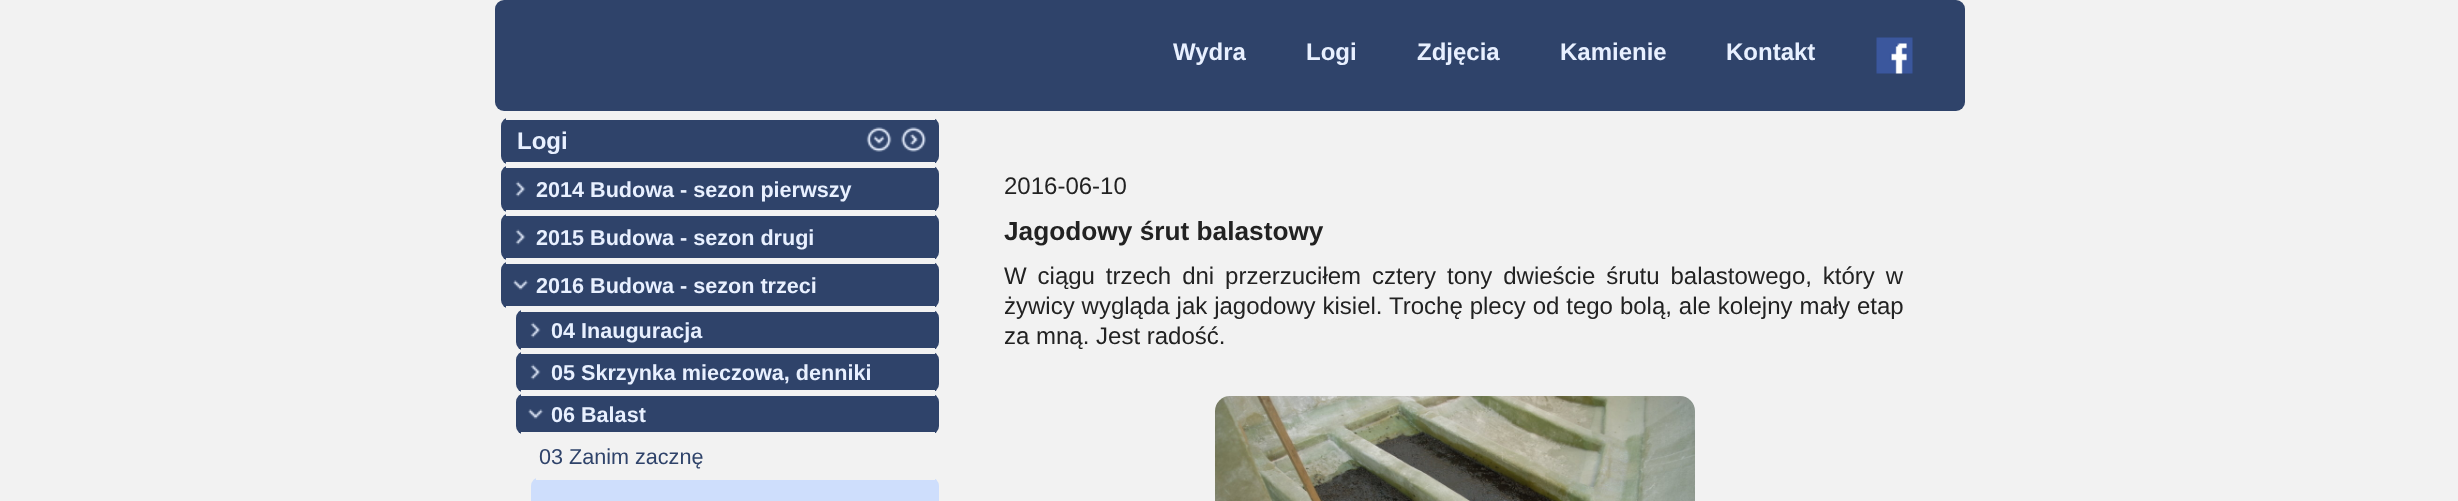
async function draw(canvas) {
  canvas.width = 2458
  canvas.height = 501
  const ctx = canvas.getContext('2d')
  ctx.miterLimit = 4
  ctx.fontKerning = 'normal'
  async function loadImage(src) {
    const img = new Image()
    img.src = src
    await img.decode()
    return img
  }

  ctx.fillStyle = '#f2f2f2'
  ctx.fillRect(0, 0, 2458, 501)
  ctx.fillStyle = '#2f436a'
  ctx.beginPath()
  ctx.roundRect(495, 0, 1470, 111, 9)
  ctx.fill()
  ctx.font = 'bold 24px Liberation Sans'
  ctx.fillStyle = '#e8f0ff'
  ctx.fillText('Wydra', 1173, 60)
  ctx.fillText('Logi', 1306, 60)
  ctx.fillText('Zdjęcia', 1417, 60)
  ctx.fillText('Kamienie', 1560, 60)
  ctx.fillText('Kontakt', 1726, 60)
  ctx.drawImage(await loadImage('image0.png'), 1876, 37, 37, 37)
  ctx.fillStyle = '#2f436a'
  ctx.beginPath()
  ctx.roundRect(501, 117, 438, 48, 9)
  ctx.fill()
  ctx.fillStyle = '#f2f2f2'
  ctx.fillRect(506, 117, 429, 3)
  ctx.fillRect(506, 162, 429, 3)
  ctx.fillStyle = '#e8f0ff'
  ctx.fillText('Logi', 517, 149)
  ctx.drawImage(await loadImage('image1.png'), 866, 127, 26, 25)
  ctx.drawImage(await loadImage('image2.png'), 901, 127, 25, 25)
  ctx.fillStyle = '#2f436a'
  ctx.beginPath()
  ctx.roundRect(501, 165, 438, 48, 9)
  ctx.fill()
  ctx.drawImage(await loadImage('image3.png'), 515, 181, 11, 16)
  ctx.fillStyle = '#f2f2f2'
  ctx.fillRect(506, 165, 429, 3)
  ctx.fillRect(506, 210, 429, 3)
  ctx.font = 'bold 21.6px Liberation Sans'
  ctx.fillStyle = '#e8f0ff'
  ctx.fillText('2014 Budowa - sezon pierwszy', 536, 197)
  ctx.fillStyle = '#2f436a'
  ctx.beginPath()
  ctx.roundRect(501, 213, 438, 48, 9)
  ctx.fill()
  ctx.drawImage(await loadImage('image3.png'), 515, 229, 11, 16)
  ctx.fillStyle = '#f2f2f2'
  ctx.fillRect(506, 213, 429, 3)
  ctx.fillRect(506, 258, 429, 3)
  ctx.fillStyle = '#e8f0ff'
  ctx.fillText('2015 Budowa - sezon drugi', 536, 245)
  ctx.fillStyle = '#2f436a'
  ctx.beginPath()
  ctx.roundRect(501, 261, 438, 48, 9)
  ctx.fill()
  ctx.drawImage(await loadImage('image4.png'), 513, 280, 16, 10)
  ctx.fillStyle = '#f2f2f2'
  ctx.fillRect(506, 261, 429, 3)
  ctx.fillRect(506, 306, 429, 3)
  ctx.fillStyle = '#e8f0ff'
  ctx.fillText('2016 Budowa - sezon trzeci', 536, 293)
  ctx.fillStyle = '#2f436a'
  ctx.beginPath()
  ctx.roundRect(516, 309, 423, 42, 9)
  ctx.fill()
  ctx.drawImage(await loadImage('image5.png'), 530, 322, 11, 16)
  ctx.fillStyle = '#f2f2f2'
  ctx.fillRect(521, 309, 414, 3)
  ctx.fillRect(521, 348, 414, 3)
  ctx.fillStyle = '#e8f0ff'
  ctx.fillText('04 Inauguracja', 551, 338)
  ctx.fillStyle = '#2f436a'
  ctx.beginPath()
  ctx.roundRect(516, 351, 423, 42, 9)
  ctx.fill()
  ctx.drawImage(await loadImage('image5.png'), 530, 364, 11, 16)
  ctx.fillStyle = '#f2f2f2'
  ctx.fillRect(521, 351, 414, 3)
  ctx.fillRect(521, 390, 414, 3)
  ctx.fillStyle = '#e8f0ff'
  ctx.fillText('05 Skrzynka mieczowa, denniki', 551, 380)
  ctx.fillStyle = '#2f436a'
  ctx.beginPath()
  ctx.roundRect(516, 393, 423, 42, 9)
  ctx.fill()
  ctx.drawImage(await loadImage('image6.png'), 528, 409, 16, 10)
  ctx.fillStyle = '#f2f2f2'
  ctx.fillRect(521, 393, 414, 3)
  ctx.fillRect(521, 432, 414, 3)
  ctx.fillStyle = '#e8f0ff'
  ctx.fillText('06 Balast', 551, 422)
  ctx.font = '21.6px Liberation Sans'
  ctx.fillStyle = '#2f436a'
  ctx.fillText('03 Zanim zacznę', 539, 464)
  ctx.fillStyle = '#cedefc'
  ctx.beginPath()
  ctx.roundRect(531, 477, 408, 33, 9)
  ctx.fill()
  ctx.fillStyle = '#f2f2f2'
  ctx.fillRect(536, 477, 399, 3)
  ctx.font = '24px Liberation Sans'
  ctx.fillStyle = '#222'
  ctx.fillText('2016-06-10', 1004, 194)
  ctx.font = 'bold 26.25px Liberation Sans'
  ctx.fillText('Jagodowy śrut balastowy', 1004, 240)
  ctx.wordSpacing = '4.25px'
  ctx.font = '24px Liberation Sans'
  ctx.fillText('W ciągu trzech dni przerzuciłem cztery tony dwieście śrutu balastowego, który w', 1004, 284)
  ctx.wordSpacing = '0.25px'
  ctx.fillText('żywicy wygląda jak jagodowy kisiel. Trochę plecy od tego bolą, ale kolejny mały etap', 1004, 314)
  ctx.wordSpacing = '0px'
  ctx.fillText('za mną. Jest radość.', 1004, 344)
  ctx.drawImage(await loadImage('image7.png'), 1215, 396, 480, 105)
}

draw(document.querySelector('canvas'))
